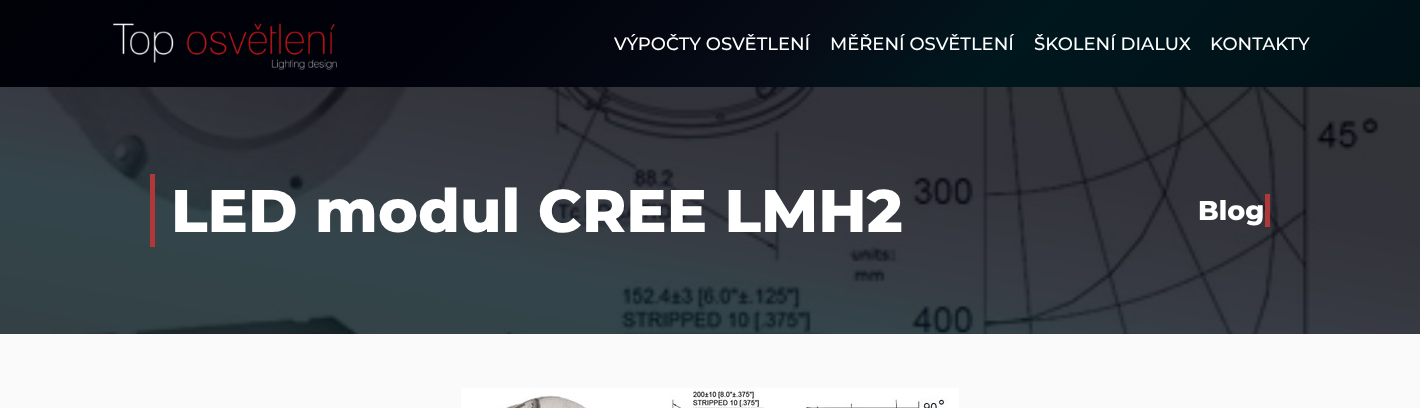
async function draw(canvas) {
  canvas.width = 1420
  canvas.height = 408
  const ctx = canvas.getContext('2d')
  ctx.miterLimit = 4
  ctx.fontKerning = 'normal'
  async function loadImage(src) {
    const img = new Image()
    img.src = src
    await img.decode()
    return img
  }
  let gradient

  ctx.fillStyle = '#fff'
  ctx.fillRect(0, 0, 1420, 408)
  gradient = ctx.createLinearGradient(333, -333, 1087, 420)
  gradient.addColorStop(0, '#000208')
  gradient.addColorStop(0.3, '#00010a')
  gradient.addColorStop(0.55, '#060b15')
  gradient.addColorStop(0.7, '#00171e')
  gradient.addColorStop(1, '#001116')
  ctx.fillStyle = gradient
  ctx.fillRect(0, 0, 1420, 87)
  ctx.drawImage(await loadImage('image0.png'), 113, 23, 224, 47)
  ctx.font = '500 18px Montserrat'
  ctx.fillStyle = '#fff'
  ctx.fillText('VÝPOČTY OSVĚTLENÍ', 614, 50)
  ctx.fillText('MĚŘENÍ OSVĚTLENÍ', 830, 50)
  ctx.fillText('ŠKOLENÍ DIALUX', 1034, 50)
  ctx.fillText('KONTAKTY', 1210, 50)
  ctx.drawImage(await loadImage('image1.png'), 0, 87, 1420, 247)
  ctx.fillStyle = '#b13838'
  ctx.fillRect(150, 174, 5, 73)
  ctx.font = '800 60px Montserrat'
  ctx.fillStyle = '#fff'
  ctx.fillText('LED modul CREE LMH2', 171, 232)
  ctx.fillStyle = '#b13838'
  ctx.fillRect(1265, 194, 5, 33)
  ctx.font = '800 27px Montserrat'
  ctx.fillStyle = '#fff'
  ctx.fillText('Blog', 1198, 220)
  ctx.fillStyle = '#fafafa'
  ctx.fillRect(0, 334, 1420, 74)
  ctx.drawImage(await loadImage('image2.png'), 461, 388, 498, 20)
}

draw(document.querySelector('canvas'))
